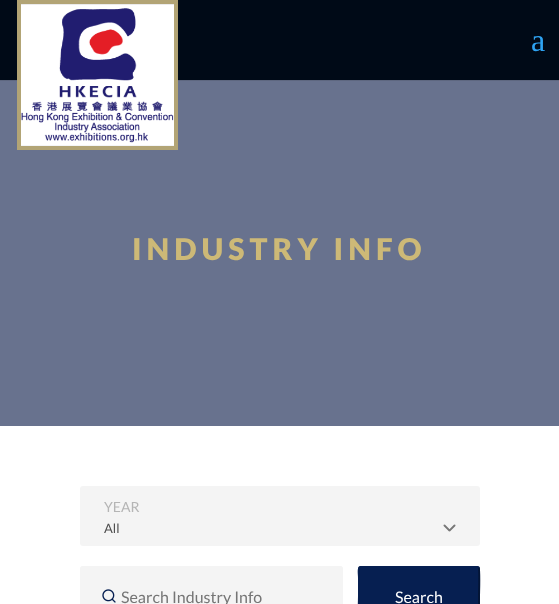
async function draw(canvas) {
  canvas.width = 559
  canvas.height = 604
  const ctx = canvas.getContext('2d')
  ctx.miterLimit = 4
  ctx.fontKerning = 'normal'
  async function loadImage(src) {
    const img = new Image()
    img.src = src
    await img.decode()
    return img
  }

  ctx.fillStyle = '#fff'
  ctx.fillRect(0, 0, 559, 604)
  ctx.fillStyle = '#5e6780'
  ctx.fillRect(0, 80, 559, 1)
  ctx.fillStyle = '#000a17'
  ctx.fillRect(0, 0, 559, 80)
  ctx.fillStyle = '#68728e'
  ctx.fillRect(0, 81, 559, 345)
  ctx.strokeStyle = '#b2a475'
  ctx.lineWidth = 4
  ctx.strokeRect(19, 2, 157, 146)
  ctx.drawImage(await loadImage('image0.png'), 21, 4, 153, 142)
  ctx.font = '32px Liberation Serif'
  ctx.fillStyle = '#2ea3f2'
  ctx.fillText('a', 531, 51)
  ctx.letterSpacing = '5px'
  ctx.font = '900 30px Lato'
  ctx.fillStyle = '#cdb977'
  ctx.fillText('INDUSTRY INFO', 132, 260)
  ctx.fillStyle = '#f4f4f4'
  ctx.beginPath()
  ctx.roundRect(80, 486, 400, 60, 3)
  ctx.fill()
  ctx.letterSpacing = '0px'
  ctx.font = '14px Lato'
  ctx.fillStyle = '#b5b5b5'
  ctx.fillText('YEAR', 104, 512)
  ctx.drawImage(await loadImage('image1.png'), 443, 524, 13, 8)
  ctx.font = '13px Lato'
  ctx.fillStyle = '#4e4e4e'
  ctx.fillText('All', 104, 533)
  ctx.fillStyle = '#f4f4f4'
  ctx.beginPath()
  ctx.roundRect(80, 566, 263, 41, 3)
  ctx.fill()
  ctx.drawImage(await loadImage('image2.png'), 102, 589, 14, 14)
  ctx.beginPath()
  ctx.roundRect(80.5, 566.5, 262, 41, 2.5)
  ctx.strokeStyle = '#f4f4f4'
  ctx.lineWidth = 1
  ctx.stroke()
  ctx.font = '16px Lato'
  ctx.fillStyle = '#757575'
  ctx.fillText('Search Industry Info', 121, 603)
  ctx.fillStyle = '#061f51'
  ctx.beginPath()
  ctx.roundRect(358, 566, 122, 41, 3)
  ctx.fill()
  ctx.beginPath()
  ctx.moveTo(478.5, 567.5)
  ctx.bezierCurveTo(480, 569, 479, 592.5, 479, 596)
  ctx.lineTo(479, 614)
  ctx.bezierCurveTo(479, 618, 480.5, 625, 477, 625)
  ctx.lineTo(361, 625)
  ctx.lineTo(359.5, 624.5)
  ctx.strokeStyle = '#041536'
  ctx.lineWidth = 2
  ctx.stroke()
  ctx.beginPath()
  ctx.moveTo(359.5, 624.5)
  ctx.bezierCurveTo(358, 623, 359, 599.5, 359, 596)
  ctx.lineTo(359, 578)
  ctx.bezierCurveTo(359, 574, 357.5, 567, 361, 567)
  ctx.lineTo(477, 567)
  ctx.lineTo(478.5, 567.5)
  ctx.strokeStyle = '#061f51'
  ctx.stroke()
  ctx.fillStyle = '#fff'
  ctx.fillText('Search', 395, 603)
}

draw(document.querySelector('canvas'))
